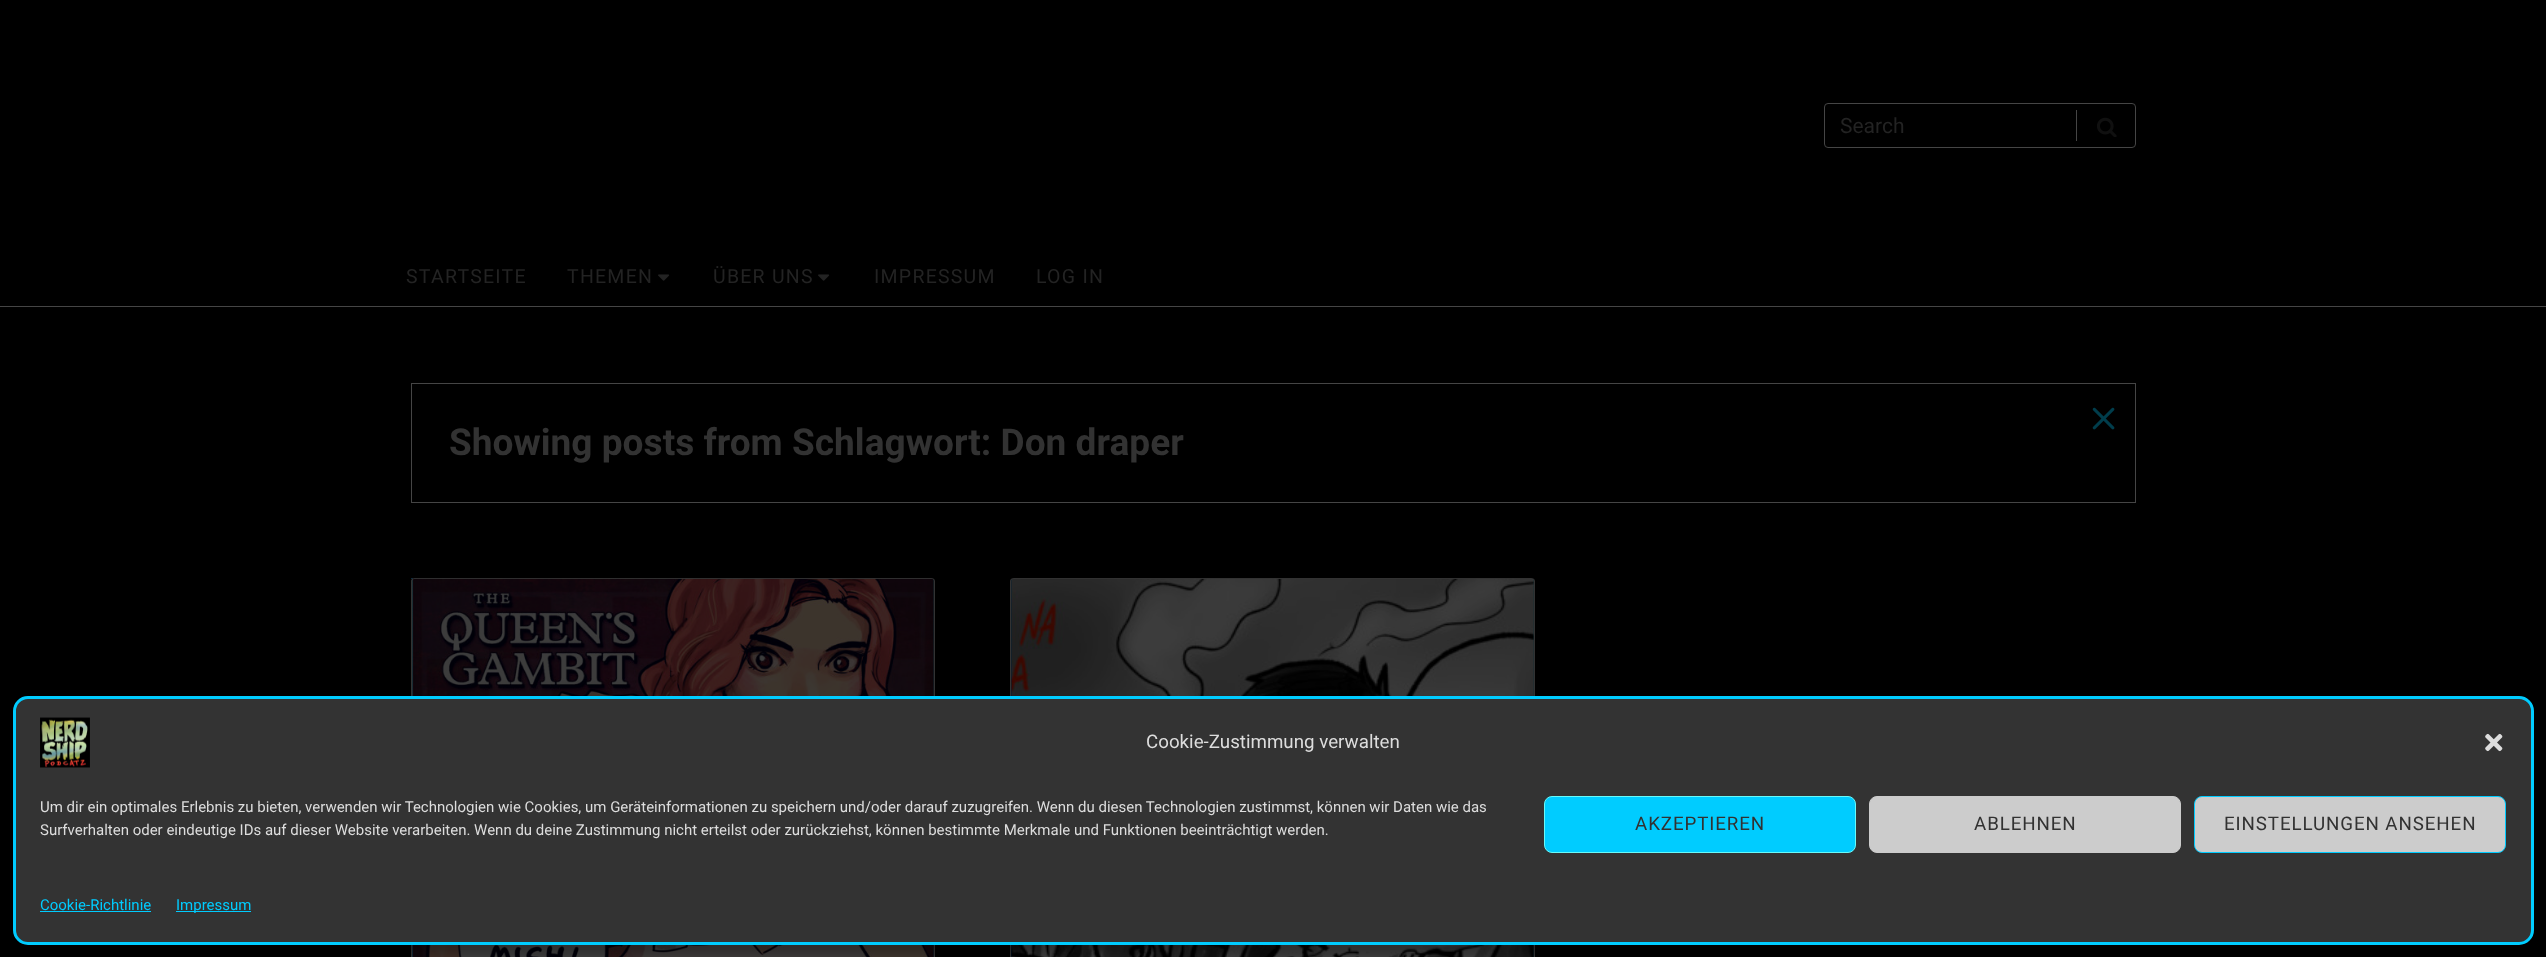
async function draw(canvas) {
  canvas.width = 2546
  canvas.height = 957
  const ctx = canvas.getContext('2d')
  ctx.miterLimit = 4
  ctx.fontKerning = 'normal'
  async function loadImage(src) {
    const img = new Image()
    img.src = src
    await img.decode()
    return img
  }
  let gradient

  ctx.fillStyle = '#000'
  ctx.fillRect(0, 0, 2546, 957)
  ctx.fillStyle = '#454545'
  ctx.fillRect(0, 306, 2546, 1)
  ctx.beginPath()
  ctx.roundRect(1824.5, 103.5, 311, 44, 3.5)
  ctx.strokeStyle = '#454545'
  ctx.stroke()
  ctx.font = '21px Roboto'
  ctx.fillStyle = '#232323'
  ctx.fillText('Search', 1840, 133)
  ctx.fillStyle = '#454545'
  ctx.fillRect(2076, 110, 1, 31)
  ctx.drawImage(await loadImage('image0.png'), 2097, 117, 20, 20)
  ctx.letterSpacing = '1.25px'
  ctx.font = '19.5px Roboto'
  ctx.fillStyle = '#232323'
  ctx.fillText('STARTSEITE', 406, 283)
  ctx.fillText('THEMEN', 567, 283)
  ctx.drawImage(await loadImage('image1.png'), 658, 274, 12, 7)
  ctx.fillText('ÜBER UNS', 713, 283)
  ctx.drawImage(await loadImage('image1.png'), 818, 274, 12, 7)
  ctx.fillText('IMPRESSUM', 874, 283)
  ctx.fillText('LOG IN', 1036, 283)
  ctx.strokeRect(411.5, 383.5, 1724, 119)
  ctx.drawImage(await loadImage('image2.png'), 2092, 407, 23, 23)
  ctx.letterSpacing = '0px'
  ctx.font = 'bold 37.1px Roboto'
  ctx.fillStyle = '#323232'
  ctx.fillText('Showing posts from Schlagwort: Don draper', 449, 455)
  gradient = ctx.createLinearGradient(-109, 578, 413, 57)
  gradient.addColorStop(0, '#001931')
  gradient.addColorStop(0.25, '#001f3d')
  gradient.addColorStop(1, '#1f3c40')
  ctx.fillStyle = gradient
  ctx.fillRect(411, 578, 2, 1)
  ctx.save()
  ctx.beginPath()
  ctx.moveTo(415, 578)
  ctx.lineTo(931, 578)
  ctx.bezierCurveTo(933, 578, 935, 580, 935, 582)
  ctx.lineTo(935, 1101)
  ctx.lineTo(411, 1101)
  ctx.lineTo(411, 582)
  ctx.bezierCurveTo(411, 580, 413, 578, 415, 578)
  ctx.closePath()
  ctx.clip()
  gradient = ctx.createLinearGradient(-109, 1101, 413, 579)
  gradient.addColorStop(0, '#001931')
  gradient.addColorStop(0.25, '#001f3d')
  gradient.addColorStop(1, '#1f3c40')
  ctx.fillStyle = gradient
  ctx.fillRect(411, 579, 2, 378)
  ctx.restore()
  gradient = ctx.createLinearGradient(412, 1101, 934, 579)
  gradient.addColorStop(0, '#001931')
  gradient.addColorStop(0.25, '#001f3d')
  gradient.addColorStop(1, '#1f3c40')
  ctx.fillStyle = gradient
  ctx.fillRect(413, 579, 521, 378)
  ctx.fillStyle = '#323232'
  ctx.beginPath()
  ctx.moveTo(415, 578)
  ctx.lineTo(931, 578)
  ctx.bezierCurveTo(933, 578, 935, 579, 935, 581)
  ctx.lineTo(935, 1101)
  ctx.lineTo(411, 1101)
  ctx.lineTo(411, 581)
  ctx.bezierCurveTo(411, 579, 413, 578, 415, 578)
  ctx.closePath()
  ctx.moveTo(415, 579)
  ctx.lineTo(931, 579)
  ctx.bezierCurveTo(933, 579, 934, 580, 934, 581)
  ctx.lineTo(934, 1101)
  ctx.lineTo(412, 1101)
  ctx.lineTo(412, 581)
  ctx.bezierCurveTo(412, 580, 414, 579, 415, 579)
  ctx.closePath()
  ctx.fill('evenodd')
  ctx.drawImage(await loadImage('image3.png'), 412, 578, 522, 379)
  ctx.fillStyle = '#00000033'
  ctx.beginPath()
  ctx.moveTo(415.5, 579)
  ctx.lineTo(931.5, 579)
  ctx.bezierCurveTo(933, 579, 934, 580, 934, 581.5)
  ctx.lineTo(934, 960)
  ctx.lineTo(413, 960)
  ctx.lineTo(413, 581.5)
  ctx.bezierCurveTo(413, 580, 414, 579, 415.5, 579)
  ctx.closePath()
  ctx.fill()
  gradient = ctx.createLinearGradient(1011, 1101, 1534, 579)
  gradient.addColorStop(0, '#001931')
  gradient.addColorStop(0.25, '#001f3d')
  gradient.addColorStop(1, '#1f3c40')
  ctx.fillStyle = gradient
  ctx.fillRect(1011, 579, 523, 378)
  ctx.fillStyle = '#323232'
  ctx.beginPath()
  ctx.moveTo(1014, 578)
  ctx.lineTo(1531, 578)
  ctx.bezierCurveTo(1533, 578, 1535, 579, 1535, 581)
  ctx.lineTo(1535, 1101)
  ctx.lineTo(1010, 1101)
  ctx.lineTo(1010, 581)
  ctx.bezierCurveTo(1010, 579, 1012, 578, 1014, 578)
  ctx.closePath()
  ctx.moveTo(1014, 579)
  ctx.lineTo(1531, 579)
  ctx.bezierCurveTo(1533, 579, 1534, 580, 1534, 581)
  ctx.lineTo(1534, 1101)
  ctx.lineTo(1011, 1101)
  ctx.lineTo(1011, 581)
  ctx.bezierCurveTo(1011, 580, 1012, 579, 1014, 579)
  ctx.closePath()
  ctx.fill('evenodd')
  ctx.drawImage(await loadImage('image4.png'), 1011, 578, 523, 379)
  ctx.fillStyle = '#00000033'
  ctx.beginPath()
  ctx.moveTo(1013.5, 579)
  ctx.lineTo(1531.5, 579)
  ctx.bezierCurveTo(1533, 579, 1534, 580, 1534, 581.5)
  ctx.lineTo(1534, 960)
  ctx.lineTo(1011, 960)
  ctx.lineTo(1011, 581.5)
  ctx.bezierCurveTo(1011, 580, 1012, 579, 1013.5, 579)
  ctx.closePath()
  ctx.fill()
  ctx.fillStyle = '#0000003b'
  ctx.filter = 'blur(4px)'
  ctx.beginPath()
  ctx.roundRect(13, 704, 2521, 249, 15)
  ctx.fill()
  ctx.filter = 'none'
  ctx.fillStyle = '#333'
  ctx.beginPath()
  ctx.roundRect(14.5, 697.5, 2518, 246, 13.5)
  ctx.fill()
  ctx.strokeStyle = '#0cf'
  ctx.lineWidth = 3
  ctx.stroke()
  ctx.drawImage(await loadImage('image5.png'), 40, 717, 50, 51)
  ctx.font = '18.75px Roboto'
  ctx.fillStyle = '#ddd'
  ctx.fillText('Cookie-Zustimmung verwalten', 1146, 748)
  ctx.drawImage(await loadImage('image6.png'), 2485, 733, 18, 19)
  ctx.font = '15px Roboto'
  ctx.fillText('Um dir ein optimales Erlebnis zu bieten, verwenden wir Technologien wie Cookies, um Geräteinformationen zu speichern und/oder darauf zuzugreifen. Wenn du diesen Technologien zustimmst, können wir Daten wie das', 40, 812)
  ctx.fillText('Surfverhalten oder eindeutige IDs auf dieser Website verarbeiten. Wenn du deine Zustimmung nicht erteilst oder zurückziehst, können bestimmte Merkmale und Funktionen beeinträchtigt werden.', 40, 835)
  ctx.fillStyle = '#0cf'
  ctx.beginPath()
  ctx.roundRect(1544.5, 796.5, 311, 56, 7.5)
  ctx.fill()
  ctx.strokeStyle = '#69f9f9'
  ctx.lineWidth = 1
  ctx.stroke()
  ctx.letterSpacing = '0.9px'
  ctx.font = '18.75px Roboto'
  ctx.fillStyle = '#323232'
  ctx.fillText('AKZEPTIEREN', 1635, 830)
  ctx.fillStyle = '#ccc'
  ctx.beginPath()
  ctx.roundRect(1869.5, 796.5, 311, 56, 7.5)
  ctx.fill()
  ctx.strokeStyle = '#ccc'
  ctx.stroke()
  ctx.fillStyle = '#323232'
  ctx.fillText('ABLEHNEN', 1974, 830)
  ctx.fillStyle = '#ccc'
  ctx.beginPath()
  ctx.roundRect(2194.5, 796.5, 311, 56, 7.5)
  ctx.fill()
  ctx.strokeStyle = '#0cf'
  ctx.stroke()
  ctx.fillStyle = '#323232'
  ctx.fillText('EINSTELLUNGEN ANSEHEN', 2224, 830)
  ctx.letterSpacing = '0px'
  ctx.font = '15px Roboto'
  ctx.fillStyle = '#0cf'
  ctx.fillText('Cookie-Richtlinie', 40, 910)
  ctx.fillRect(40, 911, 111, 1)
  ctx.fillRect(176, 911, 75, 1)
  ctx.fillText('Impressum', 176, 910)
}

draw(document.querySelector('canvas'))
